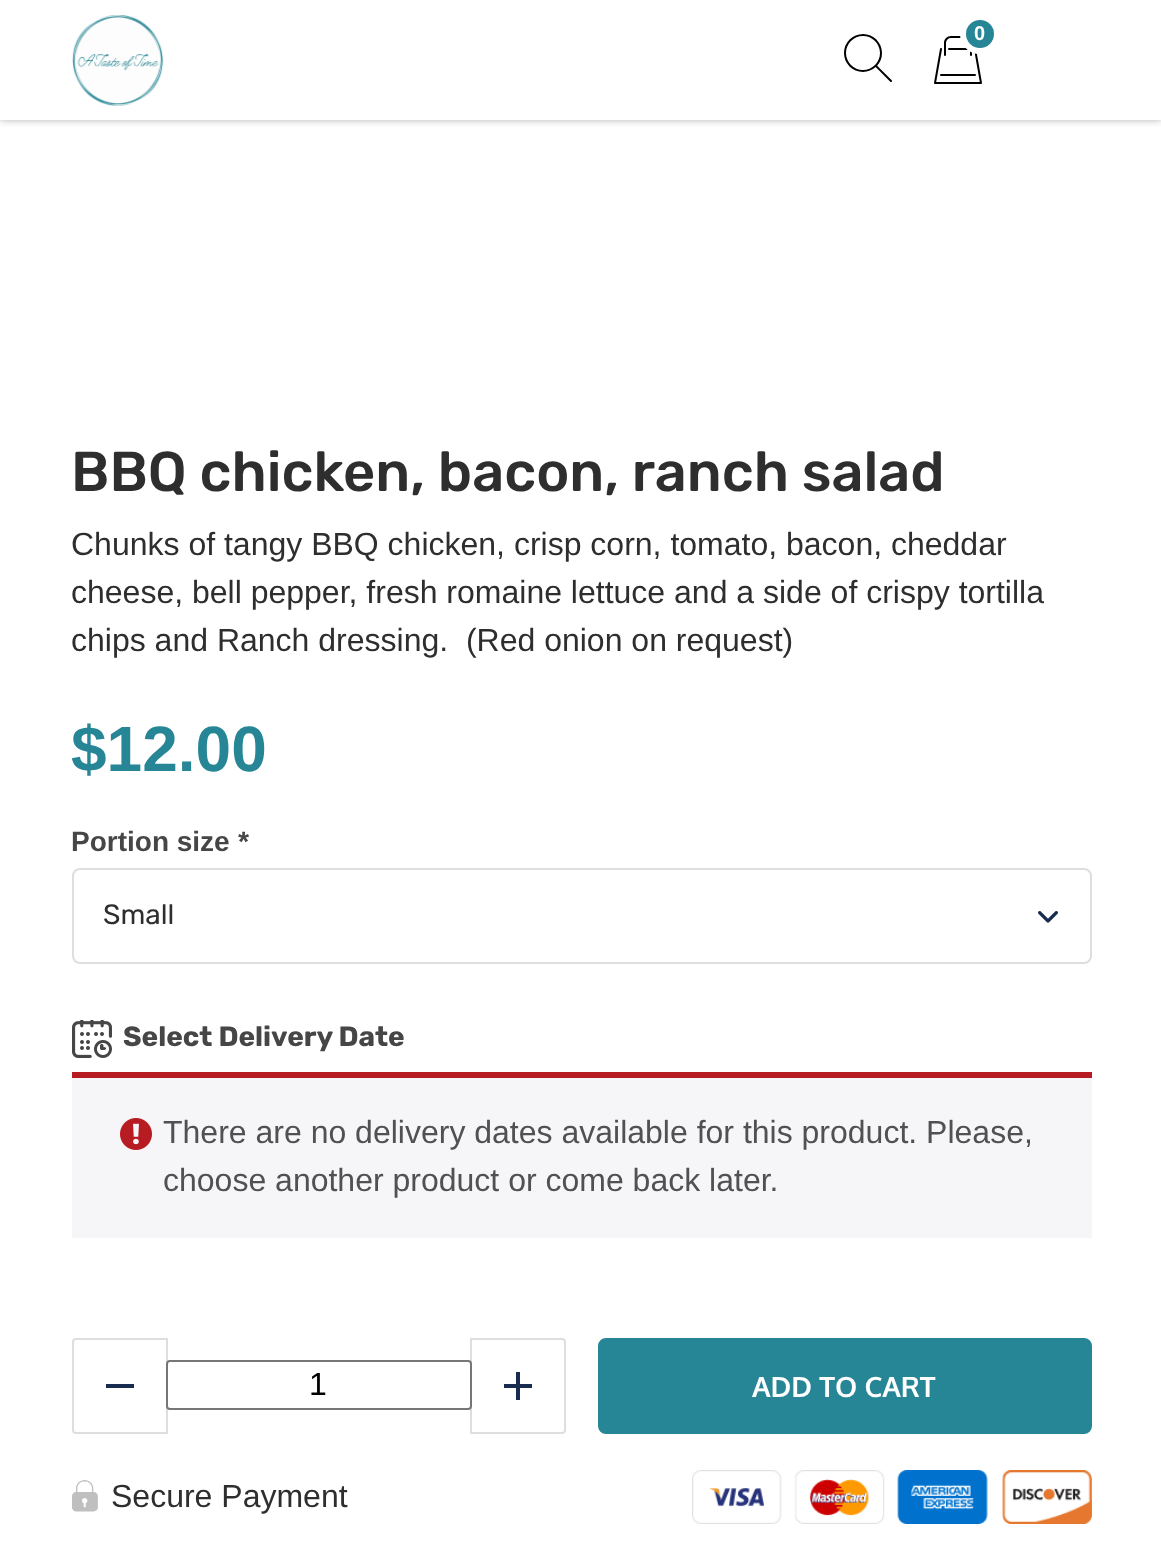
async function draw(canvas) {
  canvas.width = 1161
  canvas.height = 1559
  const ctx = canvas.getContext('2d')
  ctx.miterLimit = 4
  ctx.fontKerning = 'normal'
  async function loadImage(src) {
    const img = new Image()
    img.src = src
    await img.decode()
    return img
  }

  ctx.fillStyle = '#fff'
  ctx.fillRect(0, 0, 1161, 1559)
  ctx.save()
  ctx.beginPath()
  ctx.rect(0, 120, 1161, 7)
  ctx.clip()
  ctx.fillStyle = '#12121280'
  ctx.filter = 'blur(5px)'
  ctx.beginPath()
  ctx.rect(0, -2, 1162, 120)
  ctx.fill()
  ctx.filter = 'none'
  ctx.restore()
  ctx.drawImage(await loadImage('image0.png'), 72, 15, 92, 91)
  ctx.drawImage(await loadImage('image1.png'), 844, 34, 48, 48)
  ctx.drawImage(await loadImage('image2.png'), 934, 36, 48, 48)
  ctx.fillStyle = '#278696'
  ctx.beginPath()
  ctx.arc(980, 34, 17, 0, 2 * Math.PI)
  ctx.fill()
  ctx.strokeStyle = '#fff'
  ctx.lineWidth = 6
  ctx.stroke()
  ctx.font = 'bold 20px Liberation Sans'
  ctx.fillStyle = '#fff'
  ctx.fillText('0', 974, 40)
  ctx.font = '500 56px Rubik'
  ctx.fillStyle = '#2e2e2e'
  ctx.fillText('BBQ chicken, bacon, ranch salad', 71, 491)
  ctx.font = '32px Liberation Sans'
  ctx.fillText('Chunks of tangy BBQ chicken, crisp corn, tomato, bacon, cheddar', 71, 555)
  ctx.fillText('cheese, bell pepper, fresh romaine lettuce and a side of crispy tortilla', 71, 603)
  ctx.fillText('chips and Ranch dressing.  (Red onion on request)', 71, 651)
  ctx.font = 'bold 64px Liberation Sans'
  ctx.fillStyle = '#278696'
  ctx.fillText('$12.00', 71, 771)
  ctx.font = 'bold 28px Liberation Sans'
  ctx.fillStyle = '#464646'
  ctx.fillText('Portion size', 71, 851)
  ctx.font = 'italic bold 28px Liberation Sans'
  ctx.fillText('*', 237, 851)
  ctx.drawImage(await loadImage('image3.png'), 1038, 911, 20, 12)
  ctx.beginPath()
  ctx.roundRect(73, 869, 1018, 94, 7)
  ctx.strokeStyle = '#dedede'
  ctx.lineWidth = 2
  ctx.stroke()
  ctx.font = '28px Rubik'
  ctx.fillStyle = '#2e2e2e'
  ctx.fillText('Small', 103, 924)
  ctx.drawImage(await loadImage('image4.png'), 72, 1020, 40, 38)
  ctx.font = 'bold 28px Rubik'
  ctx.fillStyle = '#464646'
  ctx.fillText('Select Delivery Date', 123, 1046)
  ctx.fillStyle = '#f6f5f8'
  ctx.fillRect(72, 1078, 1020, 160)
  ctx.fillStyle = '#b81c23'
  ctx.fillRect(72, 1072, 1020, 6)
  ctx.drawImage(await loadImage('image5.png'), 120, 1118, 32, 32)
  ctx.font = '32px Liberation Sans'
  ctx.fillStyle = '#515151'
  ctx.fillText('There are no delivery dates available for this product. Please,', 163, 1143)
  ctx.fillText('choose another product or come back later.', 163, 1191)
  ctx.beginPath()
  ctx.roundRect(73, 1339, 94, 94, [3, 0, 0, 3])
  ctx.stroke()
  ctx.fillStyle = '#182c4f'
  ctx.fillRect(106, 1384, 28, 4)
  ctx.beginPath()
  ctx.roundRect(471, 1339, 94, 94, [0, 3, 3, 0])
  ctx.stroke()
  ctx.fillStyle = '#fff'
  ctx.beginPath()
  ctx.roundRect(167, 1361, 304, 48, 3)
  ctx.fill()
  ctx.strokeStyle = '#767676'
  ctx.stroke()
  ctx.fillStyle = '#000'
  ctx.fillText('1', 309, 1395)
  ctx.fillStyle = '#182c4f'
  ctx.fillRect(504, 1384, 28, 4)
  ctx.fillRect(516, 1372, 4, 28)
  ctx.fillStyle = '#278696'
  ctx.beginPath()
  ctx.roundRect(599, 1339, 492, 94, 7)
  ctx.fill()
  ctx.strokeStyle = '#278696'
  ctx.stroke()
  ctx.font = 'bold 28px Oxygen'
  ctx.fillStyle = '#fff'
  ctx.fillText('ADD TO CART', 752, 1397)
  ctx.drawImage(await loadImage('image6.png'), 72, 1480, 26, 32)
  ctx.font = '32px Liberation Sans'
  ctx.fillStyle = '#2e2e2e'
  ctx.fillText('Secure Payment', 111, 1507)
  ctx.drawImage(await loadImage('image7.png'), 692, 1470, 400, 54)
}

draw(document.querySelector('canvas'))
